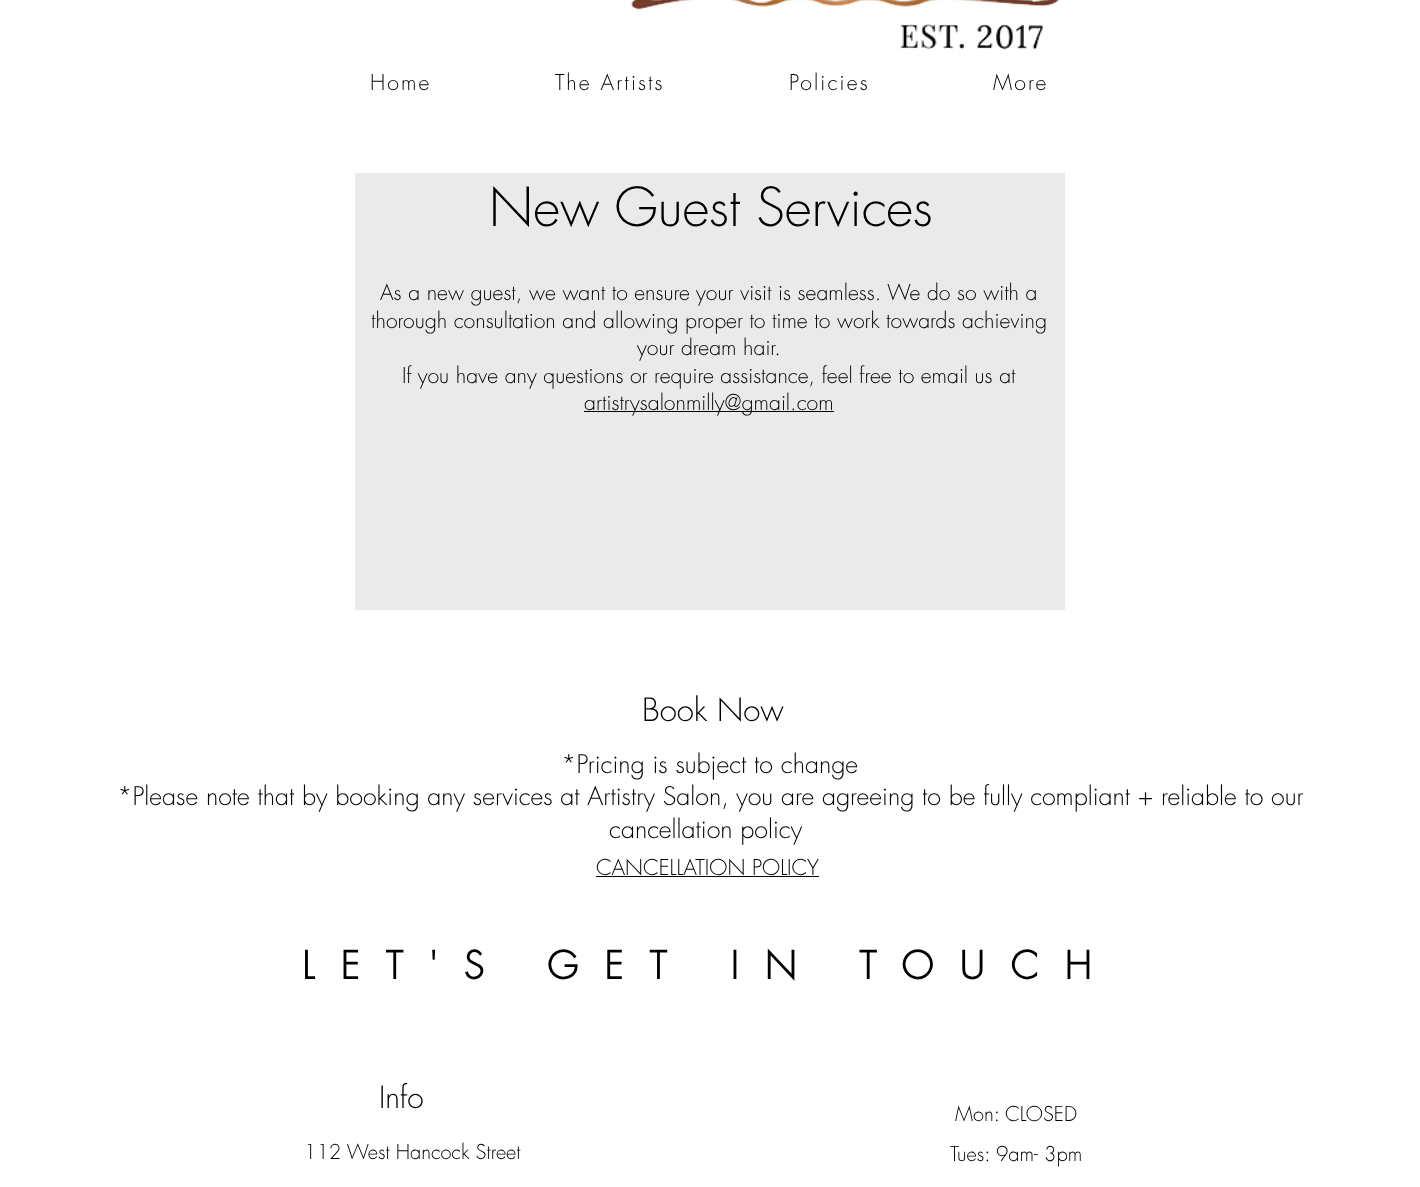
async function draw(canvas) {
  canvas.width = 1420
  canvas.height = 1187
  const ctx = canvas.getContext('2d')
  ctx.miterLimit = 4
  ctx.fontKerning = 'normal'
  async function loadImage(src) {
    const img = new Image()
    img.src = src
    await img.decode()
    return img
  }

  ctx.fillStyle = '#fff'
  ctx.fillRect(0, 0, 1420, 1187)
  ctx.drawImage(await loadImage('image0.png'), 631, 0, 429, 50)
  ctx.letterSpacing = '2.1px'
  ctx.font = '300 21.25px futura'
  ctx.fillStyle = '#000'
  ctx.fillText('Home', 370, 90)
  ctx.fillText('The Artists', 555, 90)
  ctx.fillText('Policies', 789, 90)
  ctx.fillText('More', 993, 90)
  ctx.fillStyle = '#eaeaea'
  ctx.fillRect(355, 173, 710, 437)
  ctx.letterSpacing = '0px'
  ctx.font = '300 52.5px futura'
  ctx.fillStyle = '#000'
  ctx.fillText('New Guest Services', 489, 226)
  ctx.font = '300 21.25px futura'
  ctx.fillText('As a new guest, we want to ensure your visit is seamless. We do so with a', 380, 300)
  ctx.fillText('thorough consultation and allowing proper to time to work towards achieving', 371, 328)
  ctx.fillText('your dream hair.', 637, 355)
  ctx.fillText('If you have any questions or require assistance, feel free to email us at', 402, 383)
  ctx.fillRect(584, 411, 250, 1)
  ctx.fillText('artistrysalonmilly@gmail.com', 584, 410)
  ctx.font = '300 31.25px futura'
  ctx.fillText('Book Now', 642, 721)
  ctx.font = '300 25px futura'
  ctx.fillText('*Pricing is subject to change', 561, 773)
  ctx.fillText('*Please note that by booking any services at Artistry Salon, you are agreeing to be fully compliant + reliable to our', 117, 805)
  ctx.fillText('cancellation policy', 609, 838)
  ctx.font = '300 21.25px futura'
  ctx.fillText('CANCELLATION POLICY', 596, 875)
  ctx.fillStyle = '#030303'
  ctx.fillRect(596, 876, 223, 1)
  ctx.letterSpacing = '26.25px'
  ctx.font = 'bold 37.5px futura'
  ctx.fillStyle = '#000'
  ctx.fillText('LET\'S GET IN TOUCH', 302, 979)
  ctx.letterSpacing = '0px'
  ctx.font = '300 30px futura'
  ctx.fillText('Info', 379, 1108)
  ctx.font = '300 20px futura'
  ctx.fillText('112 West Hancock Street', 304, 1159)
  ctx.fillText('Mon: CLOSED', 955, 1121)
  ctx.fillText('Tues: 9am- 3pm', 950, 1161)
}

draw(document.querySelector('canvas'))
